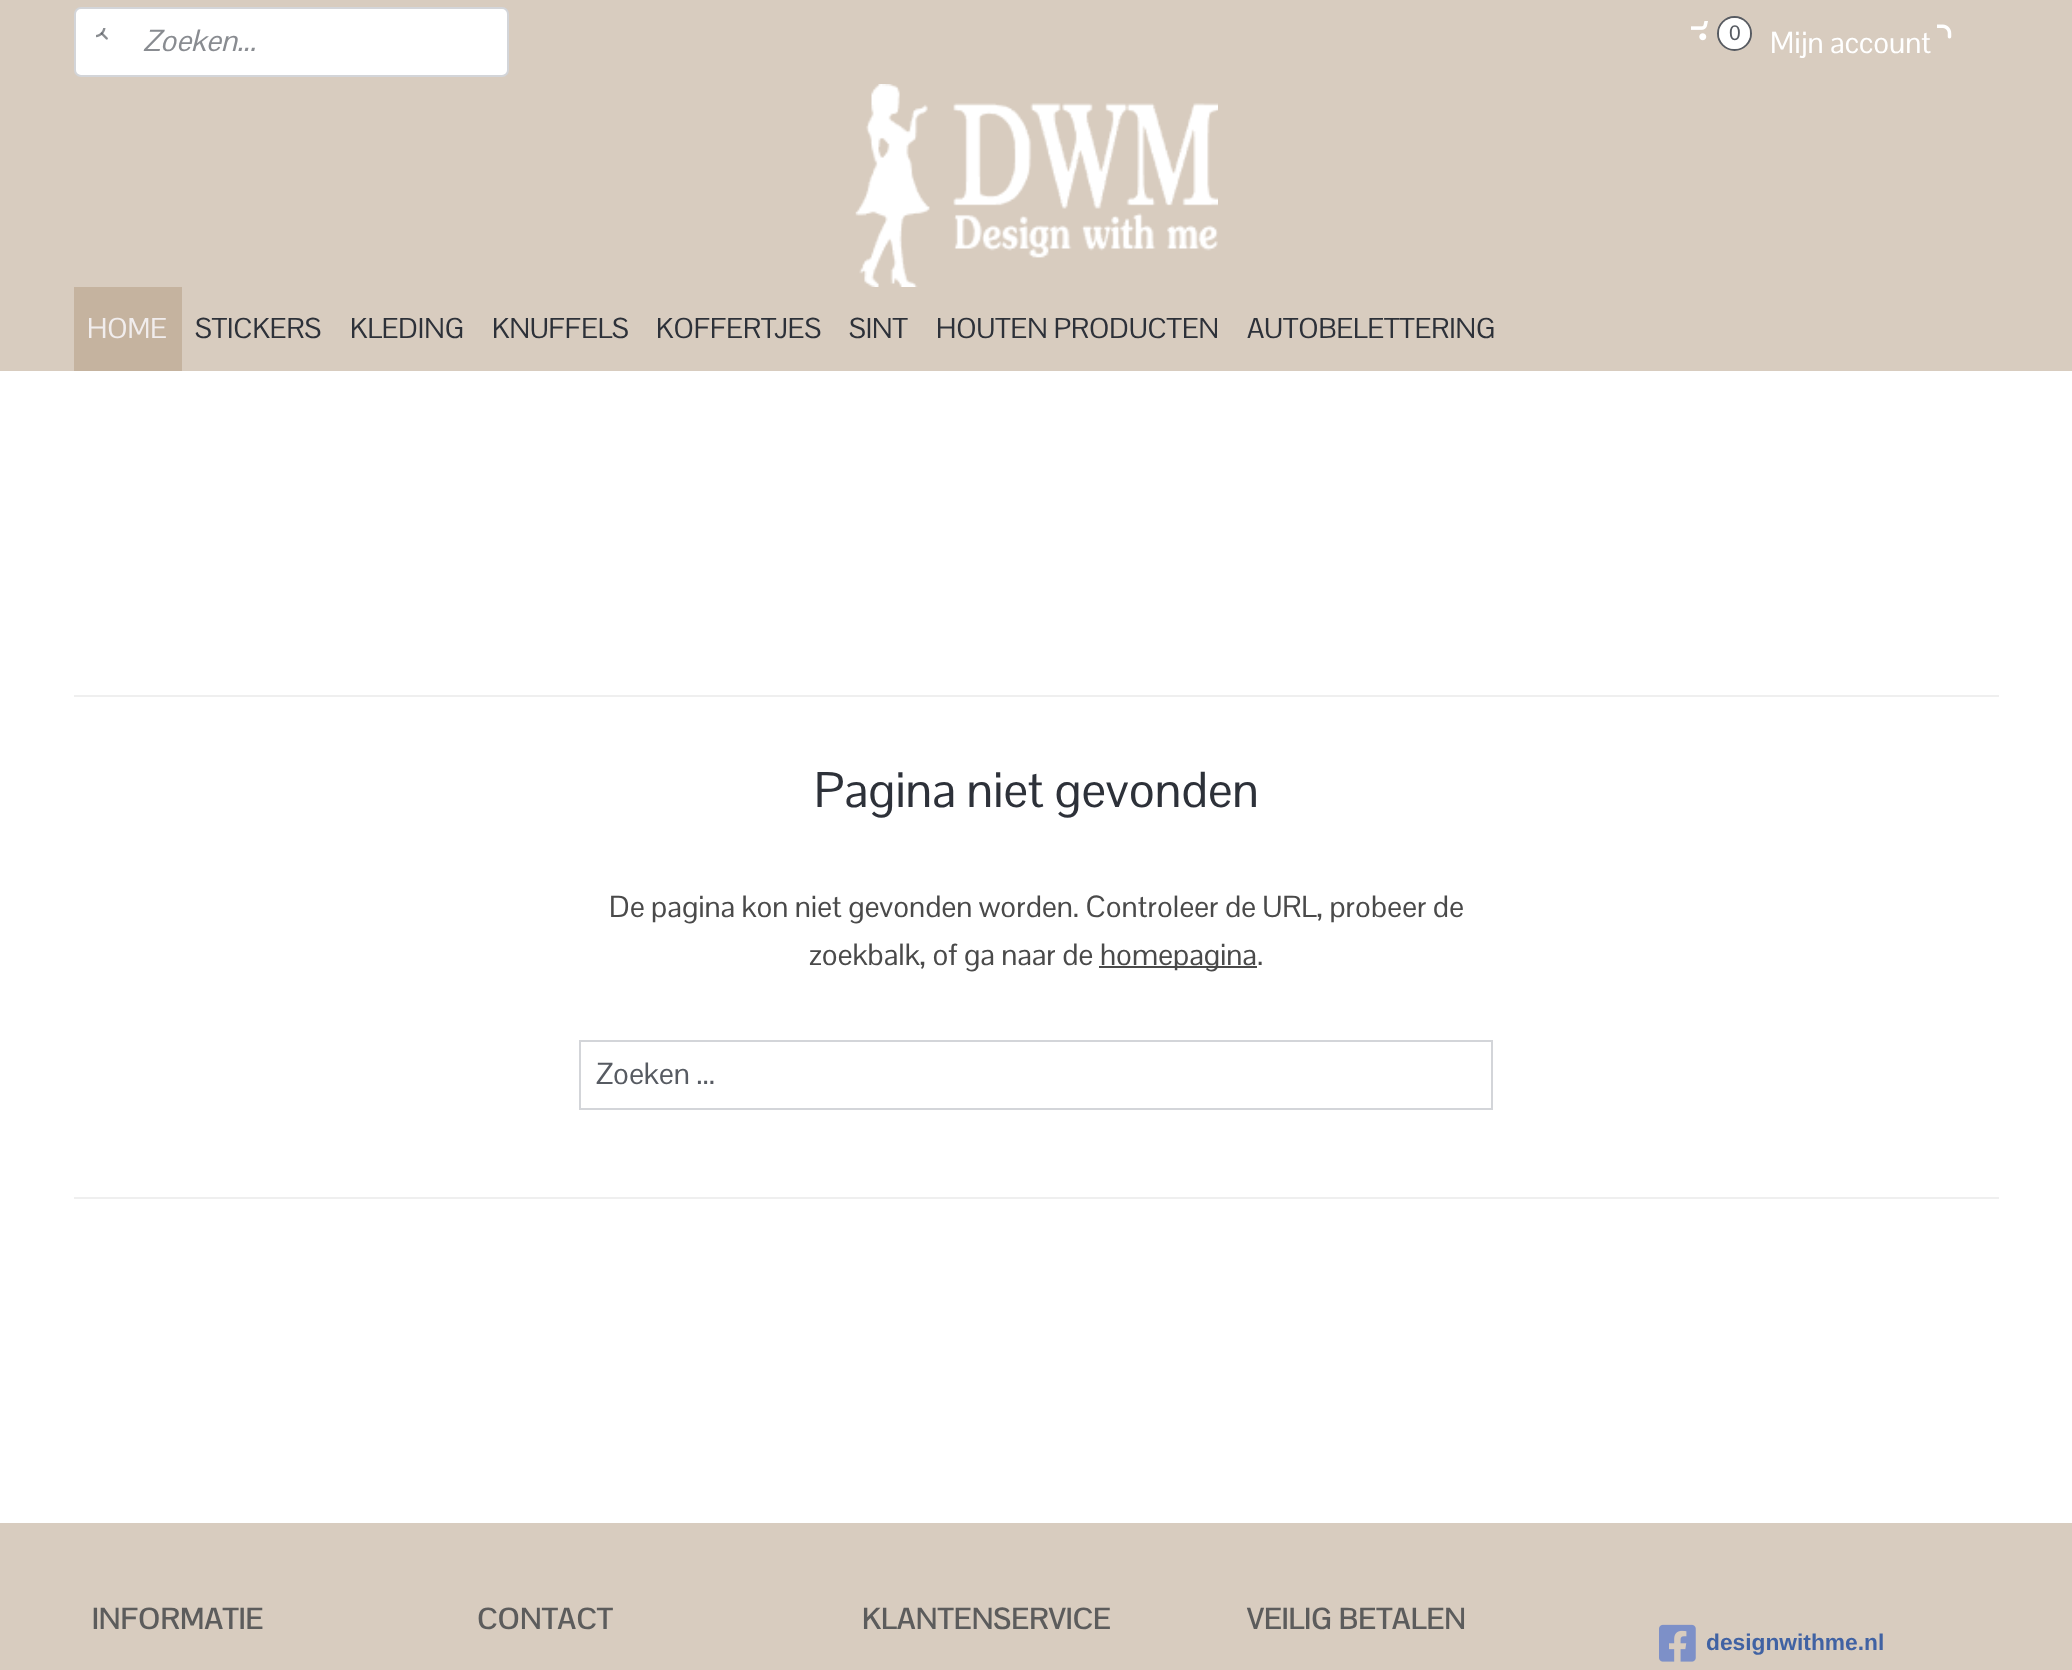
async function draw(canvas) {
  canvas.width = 2072
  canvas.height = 1670
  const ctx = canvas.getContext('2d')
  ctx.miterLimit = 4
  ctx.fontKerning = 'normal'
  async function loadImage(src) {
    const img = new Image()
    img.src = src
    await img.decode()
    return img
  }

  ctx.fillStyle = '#fff'
  ctx.fillRect(0, 0, 2072, 1670)
  ctx.fillStyle = '#d8ccbf'
  ctx.fillRect(0, 0, 2072, 371)
  ctx.fillStyle = '#fff'
  ctx.beginPath()
  ctx.roundRect(75, 8, 433, 68, 6)
  ctx.fill()
  ctx.strokeStyle = '#d3d5d9'
  ctx.lineWidth = 2
  ctx.stroke()
  ctx.drawImage(await loadImage('image0.png'), 96, 28, 12, 12)
  ctx.font = 'italic 29.75px Pontano Sans'
  ctx.fillStyle = '#898c91'
  ctx.fillText('Zoeken...', 143, 51)
  ctx.drawImage(await loadImage('image1.png'), 1691, 21, 17, 20)
  ctx.beginPath()
  ctx.arc(1734.5, 33.5, 16.5, 0, 2 * Math.PI)
  ctx.strokeStyle = '#575b62'
  ctx.stroke()
  ctx.fillStyle = '#fff'
  ctx.beginPath()
  ctx.arc(1734.5, 33.5, 15.5, 0, 2 * Math.PI)
  ctx.fill()
  ctx.font = '21px Liberation Sans'
  ctx.fillStyle = '#575b62'
  ctx.fillText('0', 1729, 40)
  ctx.font = '29.75px Pontano Sans'
  ctx.fillStyle = '#fff'
  ctx.fillText('Mijn account', 1770, 53)
  ctx.drawImage(await loadImage('image2.png'), 1937, 24, 15, 15)
  ctx.drawImage(await loadImage('image3.png'), 855, 84, 363, 203)
  ctx.fillStyle = '#c5b39f'
  ctx.fillRect(74, 287, 108, 84)
  ctx.font = '28px Pontano Sans'
  ctx.fillStyle = '#f1eded'
  ctx.fillText('HOME', 87, 338)
  ctx.fillStyle = '#2d3139'
  ctx.fillText('STICKERS', 195, 338)
  ctx.fillText('KLEDING', 350, 338)
  ctx.fillText('KNUFFELS', 492, 338)
  ctx.fillText('KOFFERTJES', 656, 338)
  ctx.fillText('SINT', 849, 338)
  ctx.fillText('HOUTEN PRODUCTEN', 936, 338)
  ctx.fillText('AUTOBELETTERING', 1247, 338)
  ctx.fillStyle = '#efefef'
  ctx.fillRect(74, 695, 1925, 2)
  ctx.fillRect(74, 1197, 1925, 2)
  ctx.font = '49px Pontano Sans'
  ctx.fillStyle = '#2d3139'
  ctx.fillText('Pagina niet gevonden', 814, 807)
  ctx.font = '29.75px Pontano Sans'
  ctx.fillStyle = '#4a4a4a'
  ctx.fillText('De pagina kon niet gevonden worden. Controleer de URL, probeer de', 609, 917)
  ctx.fillText('zoekbalk, of ga naar de', 809, 965)
  ctx.fillRect(1099, 966, 158, 2)
  ctx.fillText('homepagina.', 1100, 965)
  ctx.strokeStyle = '#d3d5d9'
  ctx.strokeRect(580, 1041, 912, 68)
  ctx.fillStyle = '#575b62'
  ctx.fillText('Zoeken ...', 596, 1084)
  ctx.fillStyle = '#d8ccbf'
  ctx.fillRect(0, 1523, 2072, 147)
  ctx.font = 'bold 29.75px Pontano Sans'
  ctx.fillStyle = '#5c5c5c'
  ctx.fillText('INFORMATIE', 92, 1629)
  ctx.fillText('CONTACT', 477, 1629)
  ctx.fillText('KLANTENSERVICE', 862, 1629)
  ctx.fillText('VEILIG BETALEN', 1247, 1629)
  ctx.drawImage(await loadImage('image4.png'), 1659, 1624, 37, 38)
  ctx.font = 'bold 22.75px Liberation Sans'
  ctx.fillStyle = '#4062a3'
  ctx.fillText('designwithme.nl', 1706, 1650)
}

draw(document.querySelector('canvas'))
